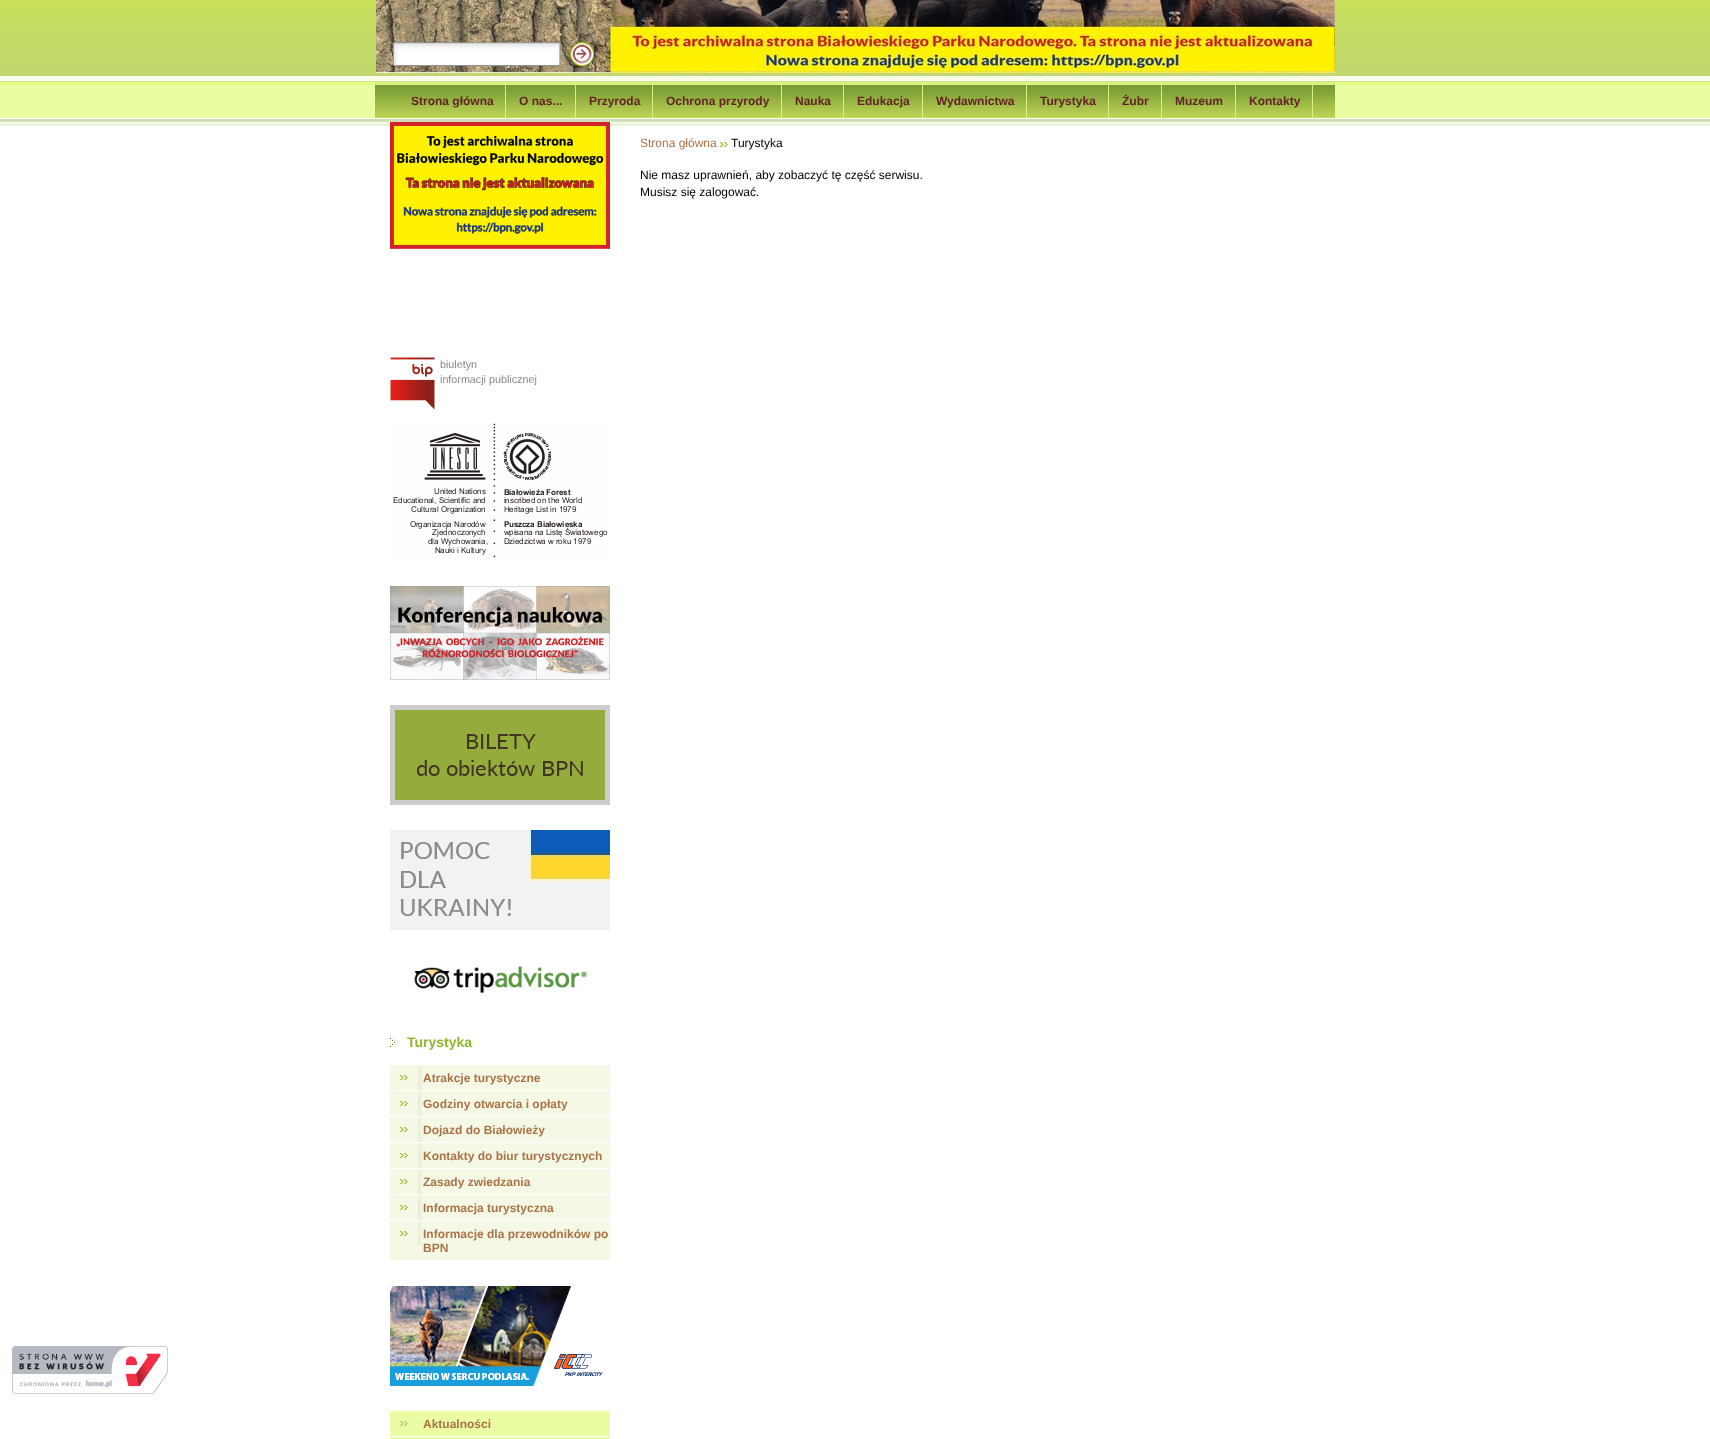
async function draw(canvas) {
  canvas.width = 1710
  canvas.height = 1439
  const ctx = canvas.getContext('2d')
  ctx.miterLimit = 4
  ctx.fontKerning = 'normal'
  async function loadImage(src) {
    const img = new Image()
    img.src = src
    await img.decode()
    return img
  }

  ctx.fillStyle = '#fff'
  ctx.fillRect(0, 0, 1710, 1439)
  ctx.drawImage(await loadImage('image1.png'), 0, 0, 1710, 126)
  ctx.drawImage(await loadImage('image2.png'), 376, 0, 208, 73)
  ctx.drawImage(await loadImage('image3.png'), 584, 0, 751, 73)
  ctx.drawImage(await loadImage('image0.png'), 392, 40, 205, 28)
  ctx.drawImage(await loadImage('image4.png'), 375, 82, 960, 36)
  ctx.drawImage(await loadImage('image5.png'), 505, 85, 1, 33)
  ctx.font = 'bold 12px Liberation Sans'
  ctx.fillStyle = '#632324'
  ctx.fillText('Strona główna', 411, 105)
  ctx.drawImage(await loadImage('image5.png'), 575, 85, 1, 33)
  ctx.fillText('O nas...', 519, 105)
  ctx.drawImage(await loadImage('image5.png'), 652, 85, 1, 33)
  ctx.fillText('Przyroda', 589, 105)
  ctx.drawImage(await loadImage('image5.png'), 781, 85, 1, 33)
  ctx.fillText('Ochrona przyrody', 666, 105)
  ctx.drawImage(await loadImage('image5.png'), 843, 85, 1, 33)
  ctx.fillText('Nauka', 795, 105)
  ctx.drawImage(await loadImage('image5.png'), 922, 85, 1, 33)
  ctx.fillText('Edukacja', 857, 105)
  ctx.drawImage(await loadImage('image5.png'), 1026, 85, 1, 33)
  ctx.fillText('Wydawnictwa', 936, 105)
  ctx.drawImage(await loadImage('image5.png'), 1108, 85, 1, 33)
  ctx.fillText('Turystyka', 1040, 105)
  ctx.drawImage(await loadImage('image5.png'), 1161, 85, 1, 33)
  ctx.fillText('Żubr', 1122, 105)
  ctx.drawImage(await loadImage('image5.png'), 1235, 85, 1, 33)
  ctx.fillText('Muzeum', 1175, 105)
  ctx.drawImage(await loadImage('image5.png'), 1312, 85, 1, 33)
  ctx.fillText('Kontakty', 1249, 105)
  ctx.drawImage(await loadImage('image6.png'), 12, 1346, 156, 48)
  ctx.font = '12px Liberation Sans'
  ctx.fillStyle = '#aa7449'
  ctx.fillText('Strona główna', 640, 147)
  ctx.drawImage(await loadImage('image7.png'), 720, 142, 8, 5)
  ctx.fillStyle = '#000'
  ctx.fillText('Turystyka', 731, 147)
  ctx.fillText('Nie masz uprawnień, aby zobaczyć tę część serwisu.', 640, 179)
  ctx.fillText('Musisz się zalogować.', 640, 196)
  ctx.drawImage(await loadImage('image8.png'), 390, 122, 220, 127)
  ctx.drawImage(await loadImage('image9.png'), 390, 357, 45, 53)
  ctx.font = '10.75px Liberation Sans'
  ctx.fillStyle = '#888'
  ctx.fillText('biuletyn', 440, 368)
  ctx.fillText('informacji publicznej', 440, 383)
  ctx.drawImage(await loadImage('image10.png'), 393, 423, 215, 135)
  ctx.drawImage(await loadImage('image11.png'), 390, 586, 220, 94)
  ctx.drawImage(await loadImage('image12.png'), 390, 705, 220, 100)
  ctx.drawImage(await loadImage('image13.png'), 390, 830, 220, 100)
  ctx.drawImage(await loadImage('image14.png'), 414, 966, 173, 27)
  ctx.drawImage(await loadImage('image15.png'), 390, 1038, 8, 9)
  ctx.font = 'bold 14px Liberation Sans'
  ctx.fillStyle = '#8fb830'
  ctx.fillText('Turystyka', 407, 1047)
  ctx.fillStyle = '#f4f8e4'
  ctx.fillRect(422, 1065, 188, 25)
  ctx.drawImage(await loadImage('image16.png'), 390, 1065, 32, 25)
  ctx.font = 'bold 12px Liberation Sans'
  ctx.fillStyle = '#aa7449'
  ctx.fillText('Atrakcje turystyczne', 423, 1082)
  ctx.fillStyle = '#f4f8e4'
  ctx.fillRect(422, 1091, 188, 25)
  ctx.drawImage(await loadImage('image16.png'), 390, 1091, 32, 25)
  ctx.fillStyle = '#aa7449'
  ctx.fillText('Godziny otwarcia i opłaty', 423, 1108)
  ctx.fillStyle = '#f4f8e4'
  ctx.fillRect(422, 1117, 188, 25)
  ctx.drawImage(await loadImage('image16.png'), 390, 1117, 32, 25)
  ctx.fillStyle = '#aa7449'
  ctx.fillText('Dojazd do Białowieży', 423, 1134)
  ctx.fillStyle = '#f4f8e4'
  ctx.fillRect(422, 1143, 188, 25)
  ctx.drawImage(await loadImage('image16.png'), 390, 1143, 32, 25)
  ctx.fillStyle = '#aa7449'
  ctx.fillText('Kontakty do biur turystycznych', 423, 1160)
  ctx.fillStyle = '#f4f8e4'
  ctx.fillRect(422, 1169, 188, 25)
  ctx.drawImage(await loadImage('image16.png'), 390, 1169, 32, 25)
  ctx.fillStyle = '#aa7449'
  ctx.fillText('Zasady zwiedzania', 423, 1186)
  ctx.fillStyle = '#f4f8e4'
  ctx.fillRect(422, 1195, 188, 25)
  ctx.drawImage(await loadImage('image16.png'), 390, 1195, 32, 25)
  ctx.fillStyle = '#aa7449'
  ctx.fillText('Informacja turystyczna', 423, 1212)
  ctx.fillStyle = '#f4f8e4'
  ctx.fillRect(390, 1221, 220, 39)
  ctx.drawImage(await loadImage('image16.png'), 390, 1221, 32, 25)
  ctx.fillStyle = '#aa7449'
  ctx.fillText('Informacje dla przewodników po', 423, 1238)
  ctx.fillText('BPN', 423, 1252)
  ctx.drawImage(await loadImage('image17.png'), 390, 1286, 213, 100)
  ctx.drawImage(await loadImage('image18.png'), 390, 1411, 220, 25)
  ctx.fillText('Aktualności', 423, 1428)
  ctx.fillStyle = '#eafda2'
  ctx.fillRect(390, 1437, 220, 2)
}

draw(document.querySelector('canvas'))
